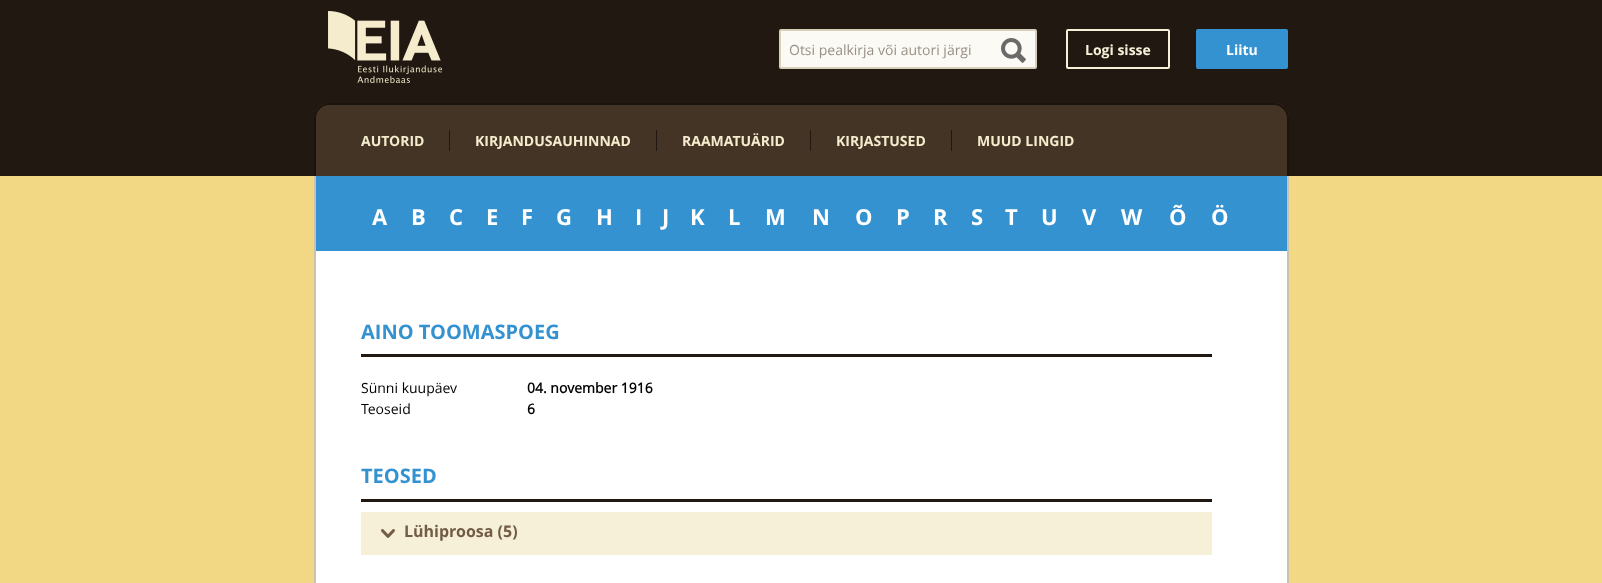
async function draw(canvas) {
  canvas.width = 1602
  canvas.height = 583
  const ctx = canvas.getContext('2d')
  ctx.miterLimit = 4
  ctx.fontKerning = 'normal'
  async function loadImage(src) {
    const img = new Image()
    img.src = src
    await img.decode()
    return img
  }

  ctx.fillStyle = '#f2d785'
  ctx.fillRect(0, 0, 1602, 583)
  ctx.fillStyle = '#211811'
  ctx.fillRect(0, 0, 1602, 176)
  ctx.drawImage(await loadImage('image0.png'), 328, 11, 114, 72)
  ctx.fillStyle = '#fbfaf4'
  ctx.beginPath()
  ctx.roundRect(780, 30, 256, 38, 1)
  ctx.fill()
  ctx.strokeStyle = '#d6d0ba'
  ctx.lineWidth = 2
  ctx.stroke()
  ctx.font = '14px Open Sans'
  ctx.fillStyle = '#988f85'
  ctx.fillText('Otsi pealkirja või autori järgi', 789, 55)
  ctx.drawImage(await loadImage('image1.png'), 1001, 38, 25, 25)
  ctx.beginPath()
  ctx.roundRect(1067, 30, 102, 38, 1)
  ctx.strokeStyle = '#f6f0d8'
  ctx.stroke()
  ctx.font = 'bold 14px Open Sans'
  ctx.fillStyle = '#f6f0d8'
  ctx.fillText('Logi sisse', 1085, 55)
  ctx.fillStyle = '#3592d1'
  ctx.beginPath()
  ctx.roundRect(1196, 29, 92, 40, 2)
  ctx.fill()
  ctx.fillStyle = '#fff'
  ctx.fillText('Liitu', 1226, 55)
  ctx.fillStyle = '#443426'
  ctx.beginPath()
  ctx.roundRect(314, 103, 975, 73, [15, 15, 0, 0])
  ctx.fill()
  ctx.fillStyle = '#1b140d'
  ctx.beginPath()
  ctx.moveTo(329, 103)
  ctx.lineTo(1274, 103)
  ctx.bezierCurveTo(1282, 103, 1289, 110, 1289, 118)
  ctx.lineTo(1289, 176)
  ctx.lineTo(314, 176)
  ctx.lineTo(314, 118)
  ctx.bezierCurveTo(314, 110, 321, 103, 329, 103)
  ctx.closePath()
  ctx.moveTo(329, 105)
  ctx.lineTo(1274, 105)
  ctx.bezierCurveTo(1281, 105, 1287, 111, 1287, 118)
  ctx.lineTo(1287, 176)
  ctx.lineTo(316, 176)
  ctx.lineTo(316, 118)
  ctx.bezierCurveTo(316, 111, 322, 105, 329, 105)
  ctx.closePath()
  ctx.fill('evenodd')
  ctx.fillStyle = '#f4eccd'
  ctx.fillText('AUTORID', 361, 146)
  ctx.fillStyle = '#211811'
  ctx.fillRect(449, 130, 1, 21)
  ctx.fillStyle = '#f4eccd'
  ctx.fillText('KIRJANDUSAUHINNAD', 475, 146)
  ctx.fillStyle = '#211811'
  ctx.fillRect(656, 130, 1, 21)
  ctx.fillStyle = '#f4eccd'
  ctx.fillText('RAAMATUÄRID', 682, 146)
  ctx.fillStyle = '#211811'
  ctx.fillRect(810, 130, 1, 21)
  ctx.fillStyle = '#f4eccd'
  ctx.fillText('KIRJASTUSED', 836, 146)
  ctx.fillStyle = '#211811'
  ctx.fillRect(951, 130, 1, 21)
  ctx.fillStyle = '#f4eccd'
  ctx.fillText('MUUD LINGID', 977, 146)
  ctx.fillStyle = '#fff'
  ctx.fillRect(316, 251, 971, 332)
  ctx.fillStyle = '#c8c3b0'
  ctx.beginPath()
  ctx.moveTo(314, 176)
  ctx.lineTo(1289, 176)
  ctx.lineTo(1289, 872)
  ctx.bezierCurveTo(1289, 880, 1282, 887, 1274, 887)
  ctx.lineTo(329, 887)
  ctx.bezierCurveTo(321, 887, 314, 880, 314, 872)
  ctx.closePath()
  ctx.moveTo(316, 176)
  ctx.lineTo(1287, 176)
  ctx.lineTo(1287, 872)
  ctx.bezierCurveTo(1287, 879, 1281, 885, 1274, 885)
  ctx.lineTo(329, 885)
  ctx.bezierCurveTo(322, 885, 316, 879, 316, 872)
  ctx.closePath()
  ctx.fill('evenodd')
  ctx.fillStyle = '#3592d1'
  ctx.fillRect(316, 176, 971, 75)
  ctx.font = 'bold 22px Open Sans'
  ctx.fillStyle = '#fff'
  ctx.fillText('A', 372, 225)
  ctx.fillText('B', 411, 225)
  ctx.fillText('C', 449, 225)
  ctx.fillText('E', 486, 225)
  ctx.fillText('F', 521, 225)
  ctx.fillText('G', 556, 225)
  ctx.fillText('H', 596, 225)
  ctx.fillText('I', 635, 225)
  ctx.fillText('J', 662, 225)
  ctx.fillText('K', 690, 225)
  ctx.fillText('L', 728, 225)
  ctx.fillText('M', 765, 225)
  ctx.fillText('N', 812, 225)
  ctx.fillText('O', 855, 225)
  ctx.fillText('P', 896, 225)
  ctx.fillText('R', 933, 225)
  ctx.fillText('S', 971, 225)
  ctx.fillText('T', 1005, 225)
  ctx.fillText('U', 1041, 225)
  ctx.fillText('V', 1082, 225)
  ctx.fillText('W', 1121, 225)
  ctx.fillText('Õ', 1169, 225)
  ctx.fillText('Ö', 1211, 225)
  ctx.fillStyle = '#211811'
  ctx.fillRect(361, 354, 851, 3)
  ctx.font = 'bold 20px Open Sans'
  ctx.fillStyle = '#3592d1'
  ctx.fillText('AINO TOOMASPOEG', 361, 339)
  ctx.font = '14px Open Sans'
  ctx.fillStyle = '#000'
  ctx.fillText('Sünni kuupäev', 361, 393)
  ctx.fillText('Teoseid', 361, 414)
  ctx.font = 'bold 14px "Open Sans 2"'
  ctx.fillText('04. november 1916', 527, 393)
  ctx.fillText('6', 527, 414)
  ctx.fillStyle = '#211811'
  ctx.fillRect(361, 499, 851, 3)
  ctx.font = 'bold 20px Open Sans'
  ctx.fillStyle = '#3592d1'
  ctx.fillText('TEOSED', 361, 483)
  ctx.fillStyle = '#f6f0d8'
  ctx.fillRect(361, 512, 851, 43)
  ctx.drawImage(await loadImage('image2.png'), 381, 529, 14, 9)
  ctx.font = 'bold 16px Open Sans'
  ctx.fillStyle = '#735c47'
  ctx.fillText('Lühiproosa (5)', 404, 537)
}

draw(document.querySelector('canvas'))
